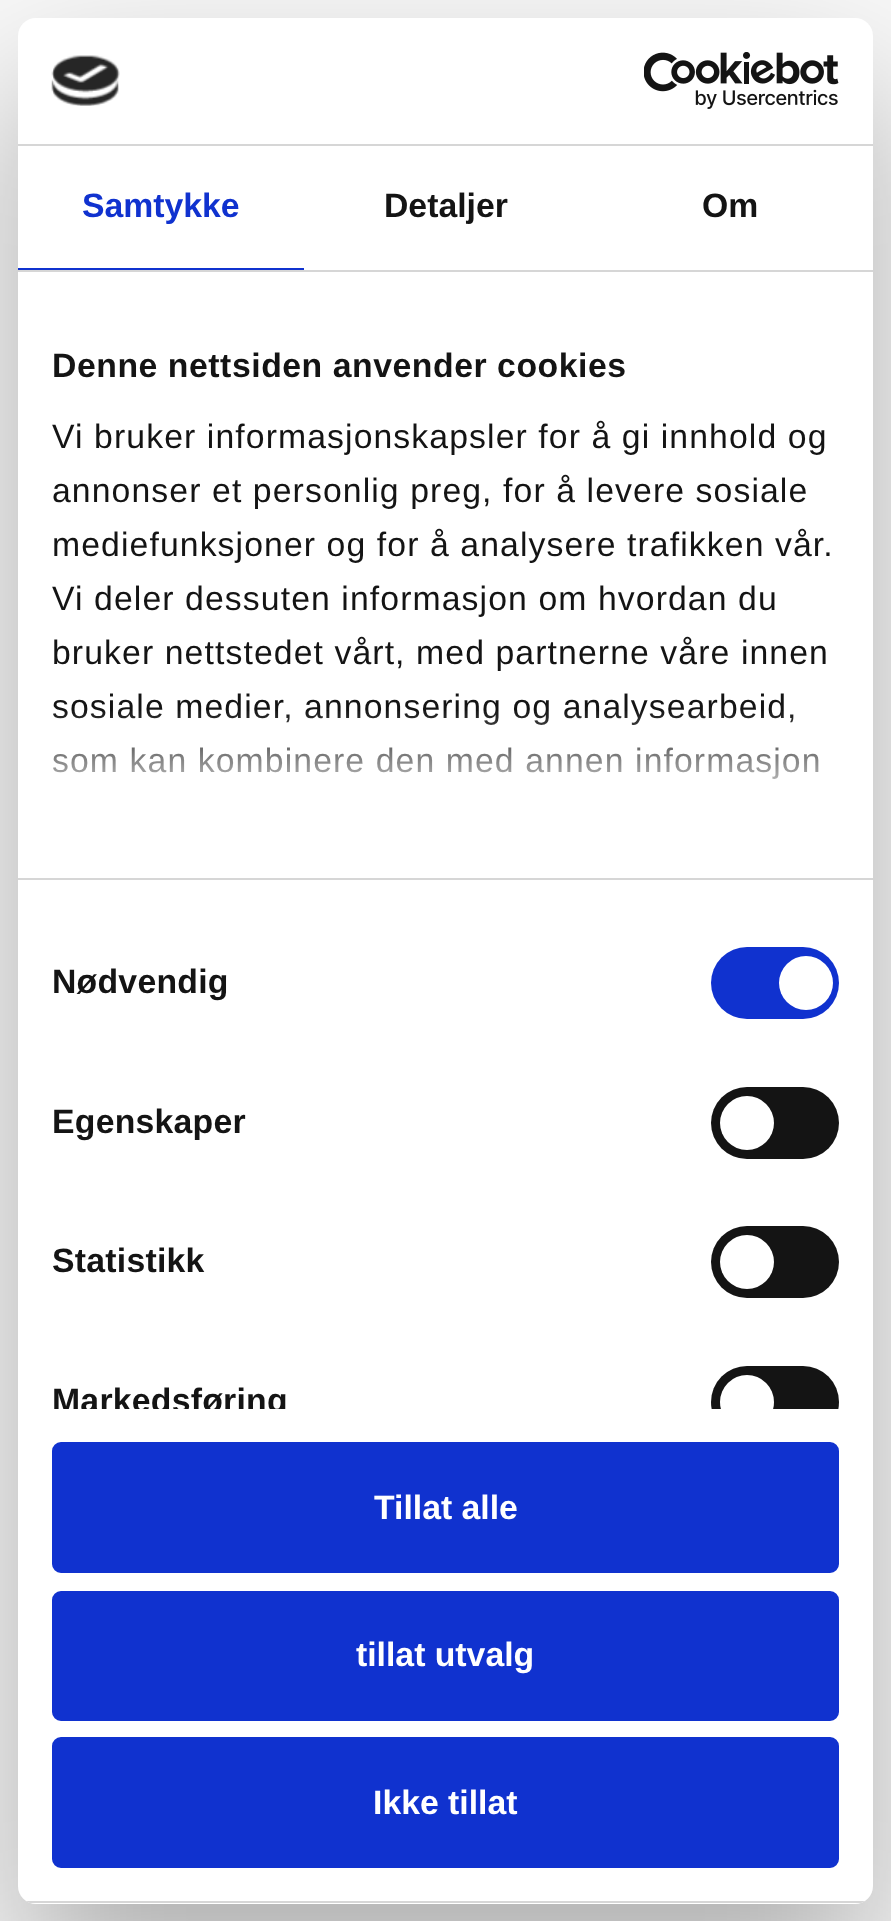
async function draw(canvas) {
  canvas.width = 891
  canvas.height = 1921
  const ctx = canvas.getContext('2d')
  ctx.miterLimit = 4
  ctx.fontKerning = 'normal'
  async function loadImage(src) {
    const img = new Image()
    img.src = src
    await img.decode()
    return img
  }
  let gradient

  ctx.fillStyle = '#f8f8f8'
  ctx.fillRect(0, 0, 891, 1921)
  ctx.fillStyle = '#0000004d'
  ctx.filter = 'blur(76.5px)'
  ctx.beginPath()
  ctx.roundRect(18, 90, 855, 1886, 18)
  ctx.fill()
  ctx.filter = 'none'
  ctx.fillStyle = '#fff'
  ctx.beginPath()
  ctx.roundRect(18, 18, 855, 1886, 18)
  ctx.fill()
  ctx.fillStyle = '#d6d6d6'
  ctx.fillRect(18, 144, 855, 2)
  ctx.drawImage(await loadImage('image0.png'), 51, 55, 69, 51)
  ctx.drawImage(await loadImage('image1.png'), 644, 52, 195, 57)
  ctx.fillRect(18, 270, 855, 2)
  ctx.fillStyle = '#1032cf'
  ctx.fillRect(18, 268, 286, 2)
  ctx.font = 'bold 33.75px Liberation Sans'
  ctx.fillText('Samtykke', 82, 217)
  ctx.fillStyle = '#141414'
  ctx.fillText('Detaljer', 384, 217)
  ctx.fillText('Om', 702, 217)
  ctx.fillStyle = '#d6d6d6'
  ctx.fillRect(18, 878, 855, 2)
  ctx.letterSpacing = '0.55px'
  ctx.fillStyle = '#141414'
  ctx.fillText('Denne nettsiden anvender cookies', 52, 377)
  ctx.letterSpacing = '1.1px'
  ctx.font = '33.75px Liberation Sans'
  ctx.fillText('Vi bruker informasjonskapsler for å gi innhold og', 52, 448)
  ctx.fillText('annonser et personlig preg, for å levere sosiale', 52, 502)
  ctx.fillText('mediefunksjoner og for å analysere trafikken vår.', 52, 556)
  ctx.fillText('Vi deler dessuten informasjon om hvordan du', 52, 610)
  ctx.fillText('bruker nettstedet vårt, med partnerne våre innen', 52, 664)
  ctx.fillText('sosiale medier, annonsering og analysearbeid,', 52, 718)
  ctx.fillText('som kan kombinere den med annen informasjon', 52, 772)
  gradient = ctx.createLinearGradient(431, 878, 431, 709)
  gradient.addColorStop(0, '#fff')
  gradient.addColorStop(0.5, '#ffffffcc')
  gradient.addColorStop(1, '#ffffff00')
  ctx.fillStyle = gradient
  ctx.fillRect(52, 711, 768, 68)
  ctx.letterSpacing = '0.25px'
  ctx.font = 'bold 33.75px Liberation Sans'
  ctx.fillStyle = '#141414'
  ctx.fillText('Nødvendig', 52, 993)
  ctx.fillStyle = '#1032cf'
  ctx.beginPath()
  ctx.roundRect(711, 947, 128, 72, 36)
  ctx.fill()
  ctx.fillStyle = '#fff'
  ctx.beginPath()
  ctx.arc(806, 983, 27, 0, 2 * Math.PI)
  ctx.fill()
  ctx.fillStyle = '#141414'
  ctx.fillText('Egenskaper', 52, 1133)
  ctx.beginPath()
  ctx.roundRect(711, 1087, 128, 72, 36)
  ctx.fill()
  ctx.fillStyle = '#fff'
  ctx.beginPath()
  ctx.arc(747, 1123, 27, 0, 2 * Math.PI)
  ctx.fill()
  ctx.fillStyle = '#141414'
  ctx.fillText('Statistikk', 52, 1272)
  ctx.beginPath()
  ctx.roundRect(711, 1226, 128, 72, 36)
  ctx.fill()
  ctx.fillStyle = '#fff'
  ctx.beginPath()
  ctx.arc(747, 1262, 27, 0, 2 * Math.PI)
  ctx.fill()
  ctx.save()
  ctx.beginPath()
  ctx.rect(18, 272, 855, 1137)
  ctx.clip()
  ctx.fillStyle = '#141414'
  ctx.fillText('Markedsføring', 52, 1412)
  ctx.beginPath()
  ctx.roundRect(711, 1366, 128, 72, 36)
  ctx.fill()
  ctx.fillStyle = '#fff'
  ctx.beginPath()
  ctx.arc(747, 1402, 27, 0, 2 * Math.PI)
  ctx.fill()
  ctx.restore()
  ctx.save()
  ctx.beginPath()
  ctx.roundRect(18, 18, 855, 1886, 18)
  ctx.clip()
  ctx.fillStyle = '#d6d6d6'
  ctx.fillRect(18, 1901, 855, 2)
  ctx.restore()
  ctx.fillStyle = '#1032cf'
  ctx.beginPath()
  ctx.roundRect(54.5, 1444.5, 782, 126, 6.5)
  ctx.fill()
  ctx.strokeStyle = '#1032cf'
  ctx.lineWidth = 5
  ctx.stroke()
  ctx.letterSpacing = '0px'
  ctx.fillStyle = '#fff'
  ctx.fillText('Tillat alle', 374, 1519)
  ctx.fillStyle = '#1032cf'
  ctx.beginPath()
  ctx.roundRect(54.5, 1593.5, 782, 125, 6.5)
  ctx.fill()
  ctx.stroke()
  ctx.fillStyle = '#fff'
  ctx.fillText('tillat utvalg', 356, 1666)
  ctx.fillStyle = '#1032cf'
  ctx.beginPath()
  ctx.roundRect(54.5, 1739.5, 782, 126, 6.5)
  ctx.fill()
  ctx.stroke()
  ctx.fillStyle = '#fff'
  ctx.fillText('Ikke tillat', 373, 1814)
}

draw(document.querySelector('canvas'))
